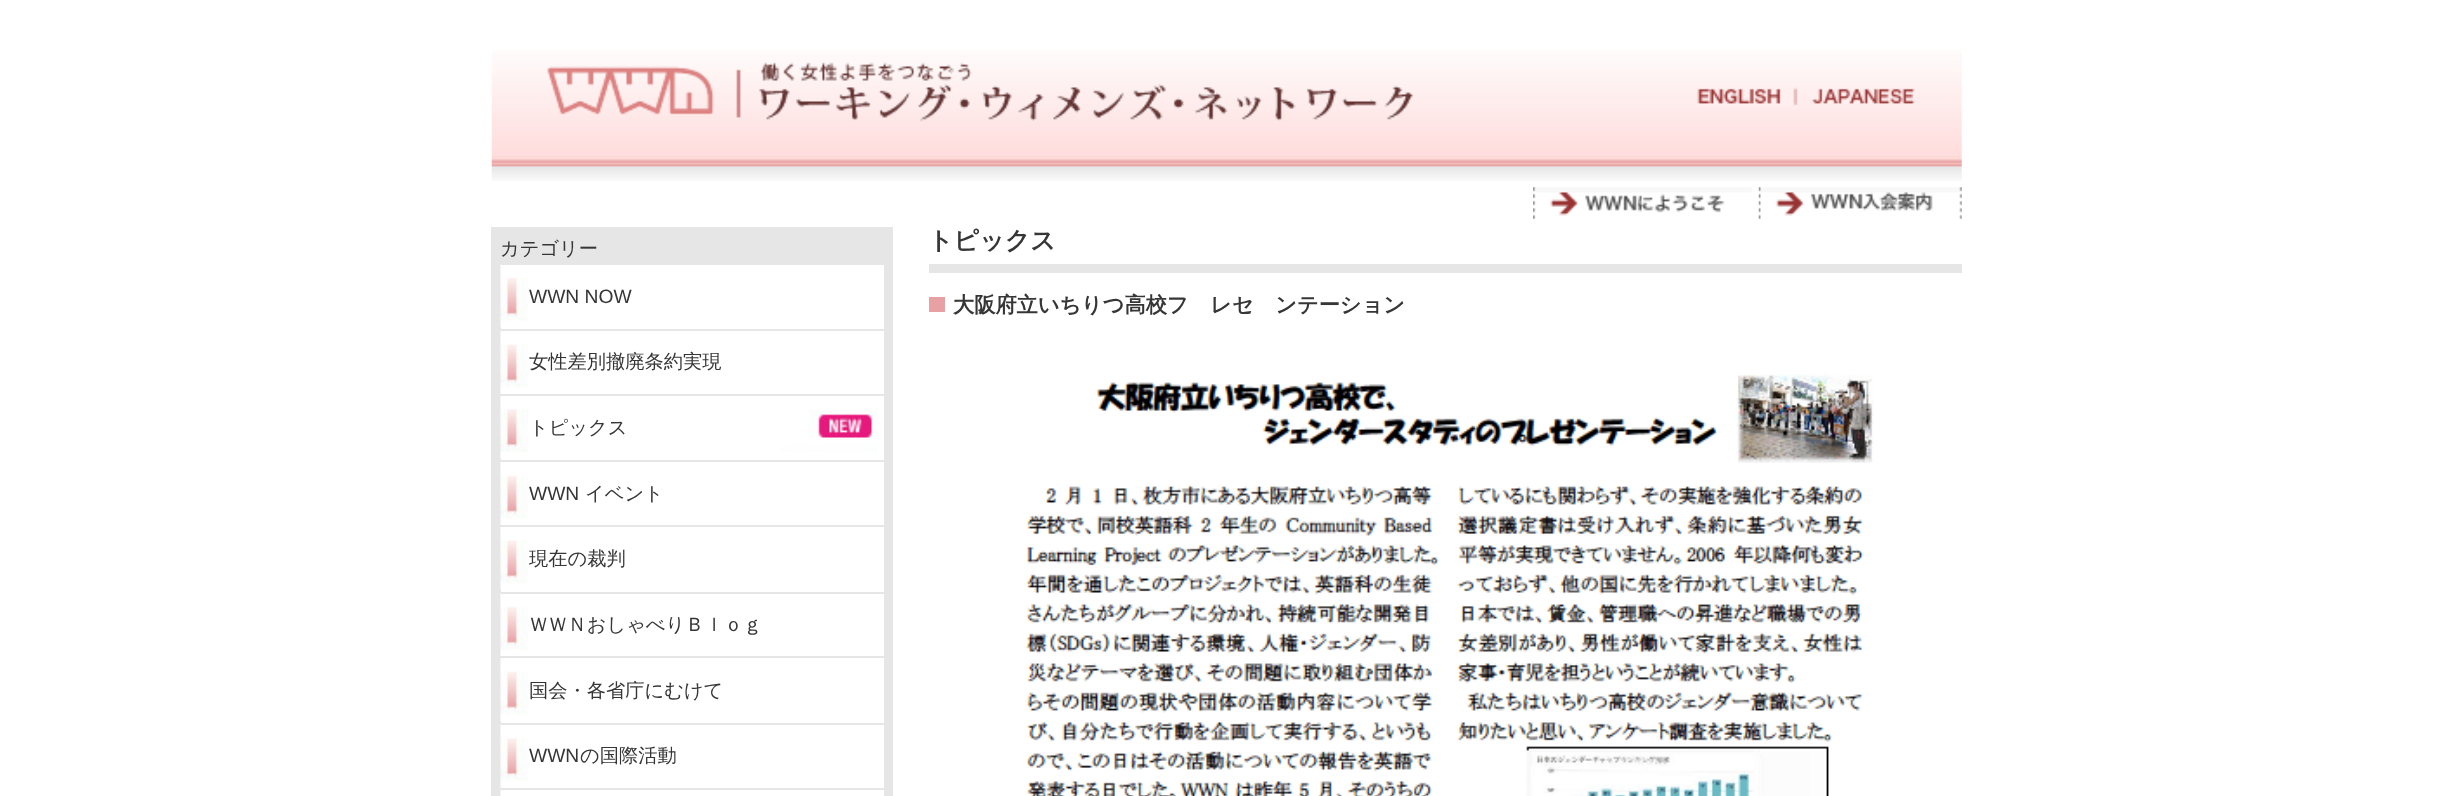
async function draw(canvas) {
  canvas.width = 2451
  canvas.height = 796
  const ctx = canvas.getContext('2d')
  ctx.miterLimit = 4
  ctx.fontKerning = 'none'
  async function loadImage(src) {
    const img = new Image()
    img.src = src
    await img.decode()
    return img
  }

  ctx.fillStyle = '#fff'
  ctx.fillRect(0, 0, 2451, 796)
  ctx.drawImage(await loadImage('image0.png'), 491, 50, 1471, 131)
  ctx.drawImage(await loadImage('image1.png'), 547, 62, 866, 60)
  ctx.drawImage(await loadImage('image2.png'), 1697, 87, 101, 19)
  ctx.drawImage(await loadImage('image3.png'), 1812, 88, 103, 16)
  ctx.drawImage(await loadImage('image4.png'), 1533, 187, 219, 32)
  ctx.drawImage(await loadImage('image5.png'), 1758, 187, 204, 32)
  ctx.fillStyle = '#e6e6e6'
  ctx.fillRect(491, 227, 402, 569)
  ctx.font = '500 19.25px WenQuanYi Zen Hei'
  ctx.fillStyle = '#363636'
  ctx.fillText('カテゴリー', 500, 255)
  ctx.fillStyle = '#fff'
  ctx.fillRect(501, 265, 383, 531)
  ctx.drawImage(await loadImage('image6.png'), 500, 264, 29, 63)
  ctx.fillStyle = '#e6e6e6'
  ctx.fillRect(501, 264, 28, 1)
  ctx.font = '19.25px Liberation Sans'
  ctx.fillStyle = '#363636'
  ctx.fillText('WWN NOW', 529, 303)
  ctx.drawImage(await loadImage('image7.png'), 500, 331, 29, 63)
  ctx.fillStyle = '#e6e6e6'
  ctx.fillRect(501, 329, 383, 2)
  ctx.font = '500 19.25px WenQuanYi Zen Hei'
  ctx.fillStyle = '#363636'
  ctx.fillText('女性差別撤廃条約実現', 529, 368)
  ctx.drawImage(await loadImage('image8.png'), 500, 395, 378, 64)
  ctx.fillStyle = '#e6e6e6'
  ctx.fillRect(501, 394, 383, 2)
  ctx.fillStyle = '#363636'
  ctx.fillText('トピックス', 529, 434)
  ctx.drawImage(await loadImage('image9.png'), 500, 462, 29, 63)
  ctx.fillStyle = '#e6e6e6'
  ctx.fillRect(501, 460, 383, 2)
  ctx.font = '19.25px Liberation Sans'
  ctx.fillStyle = '#363636'
  ctx.fillText('WWN', 529, 500)
  ctx.font = '500 19.25px WenQuanYi Zen Hei'
  ctx.fillText('イベント', 585, 500)
  ctx.drawImage(await loadImage('image7.png'), 500, 527, 29, 63)
  ctx.fillStyle = '#e6e6e6'
  ctx.fillRect(501, 525, 383, 2)
  ctx.fillStyle = '#363636'
  ctx.fillText('現在の裁判', 529, 565)
  ctx.drawImage(await loadImage('image6.png'), 500, 593, 29, 63)
  ctx.fillStyle = '#e6e6e6'
  ctx.fillRect(501, 592, 383, 2)
  ctx.fillStyle = '#363636'
  ctx.fillText('ＷＷＮおしゃべりＢｌｏｇ', 529, 631)
  ctx.drawImage(await loadImage('image9.png'), 500, 658, 29, 63)
  ctx.fillStyle = '#e6e6e6'
  ctx.fillRect(501, 656, 383, 2)
  ctx.fillStyle = '#363636'
  ctx.fillText('国会・各省庁にむけて', 529, 697)
  ctx.drawImage(await loadImage('image10.png'), 500, 724, 29, 64)
  ctx.fillStyle = '#e6e6e6'
  ctx.fillRect(501, 723, 383, 2)
  ctx.font = '19.25px Liberation Sans'
  ctx.fillStyle = '#363636'
  ctx.fillText('WWN', 529, 762)
  ctx.font = '500 19.25px WenQuanYi Zen Hei'
  ctx.fillText('の国際活動', 580, 762)
  ctx.drawImage(await loadImage('image11.png'), 500, 789, 1, 7)
  ctx.fillStyle = '#e6e6e6'
  ctx.fillRect(501, 788, 383, 2)
  ctx.fillRect(929, 264, 1033, 9)
  ctx.font = 'bold 25px WenQuanYi Zen Hei'
  ctx.fillStyle = '#363636'
  ctx.fillText('トピックス', 928, 249)
  ctx.fillStyle = '#e7a1a3'
  ctx.fillRect(929, 297, 16, 15)
  ctx.font = 'bold 21.2px WenQuanYi Zen Hei'
  ctx.fillStyle = '#363636'
  ctx.fillText('大阪府立いちりつ高校プレゼンテーション', 953, 312)
  ctx.drawImage(await loadImage('image12.png'), 1026, 374, 848, 422)
}

draw(document.querySelector('canvas'))
